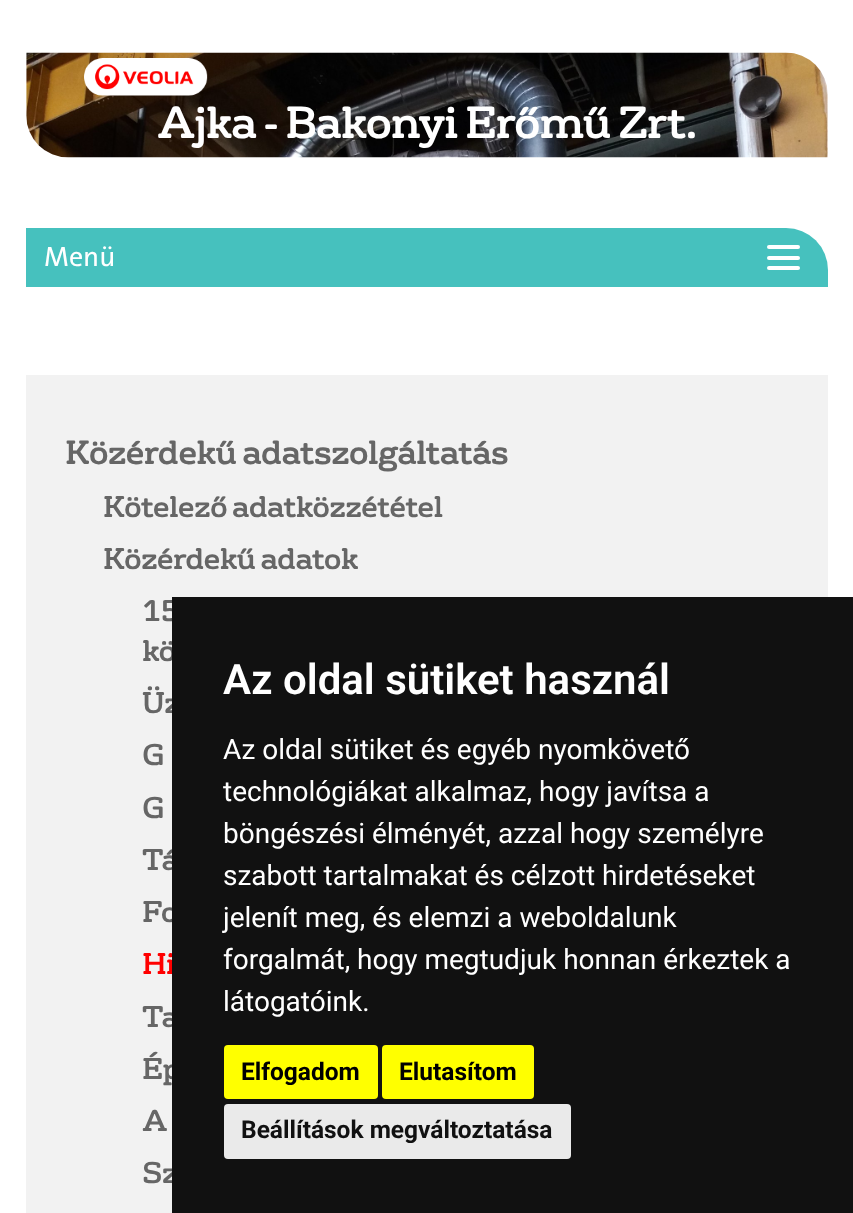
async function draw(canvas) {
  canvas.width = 853
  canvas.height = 1213
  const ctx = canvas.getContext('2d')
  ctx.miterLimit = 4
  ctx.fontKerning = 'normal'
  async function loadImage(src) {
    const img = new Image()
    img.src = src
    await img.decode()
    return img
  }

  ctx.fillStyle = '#fff'
  ctx.fillRect(0, 0, 853, 1213)
  ctx.drawImage(await loadImage('image0.png'), 26, 52, 802, 106)
  ctx.drawImage(await loadImage('image1.png'), 84, 58, 124, 38)
  ctx.font = 'bold 42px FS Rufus'
  ctx.fillText('Ajka - Bakonyi Erőmű Zrt.', 157, 138)
  ctx.fillStyle = '#46c1be'
  ctx.beginPath()
  ctx.roundRect(26, 228, 802, 59, [0, 42, 0, 0])
  ctx.fill()
  ctx.font = '500 28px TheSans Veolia'
  ctx.fillStyle = '#fff'
  ctx.fillText('Menü', 44, 266)
  ctx.beginPath()
  ctx.roundRect(767, 245, 33, 4, 2)
  ctx.fill()
  ctx.beginPath()
  ctx.roundRect(767, 256, 33, 4, 2)
  ctx.fill()
  ctx.beginPath()
  ctx.roundRect(767, 266, 33, 4, 2)
  ctx.fill()
  ctx.fillStyle = '#f2f2f2'
  ctx.fillRect(26, 375, 802, 838)
  ctx.font = 'bold 31.5px FS Rufus'
  ctx.fillStyle = '#666'
  ctx.fillText('Közérdekű adatszolgáltatás', 65, 464)
  ctx.font = 'bold 28px FS Rufus'
  ctx.fillText('Kötelező adatközzététel', 103, 517)
  ctx.fillText('Közérdekű adatok', 103, 569)
  ctx.fillText('15', 142, 621)
  ctx.fillText('kö', 142, 661)
  ctx.fillText('Üz', 142, 713)
  ctx.fillText('G', 142, 765)
  ctx.fillText('G', 142, 818)
  ctx.fillText('Tá', 142, 870)
  ctx.fillText('Fo', 142, 922)
  ctx.fillStyle = '#f00'
  ctx.fillText('Hi', 142, 974)
  ctx.fillStyle = '#666'
  ctx.fillText('Ta', 142, 1027)
  ctx.fillText('Ép', 142, 1079)
  ctx.fillText('A', 142, 1131)
  ctx.fillText('Sz', 142, 1183)
  ctx.fillStyle = '#111'
  ctx.fillRect(172, 597, 681, 616)
  ctx.font = '600 42px Roboto'
  ctx.fillStyle = '#fff'
  ctx.fillText('Az oldal sütiket használ', 223, 694)
  ctx.font = '28px Roboto'
  ctx.fillText('Az oldal sütiket és egyéb nyomkövető', 223, 759)
  ctx.fillText('technológiákat alkalmaz, hogy javítsa a', 223, 801)
  ctx.fillText('böngészési élményét, azzal hogy személyre', 223, 843)
  ctx.fillText('szabott tartalmakat és célzott hirdetéseket', 223, 885)
  ctx.fillText('jelenít meg, és elemzi a weboldalunk', 223, 927)
  ctx.fillText('forgalmát, hogy megtudjuk honnan érkeztek a', 223, 969)
  ctx.fillText('látogatóink.', 223, 1011)
  ctx.fillStyle = '#ff0'
  ctx.beginPath()
  ctx.roundRect(224, 1045, 154, 54, 4)
  ctx.fill()
  ctx.font = 'bold 24.5px Roboto'
  ctx.fillStyle = '#000'
  ctx.fillText('Elfogadom', 241, 1080)
  ctx.fillStyle = '#ff0'
  ctx.beginPath()
  ctx.roundRect(382, 1045, 152, 54, 4)
  ctx.fill()
  ctx.fillStyle = '#000'
  ctx.fillText('Elutasítom', 399, 1080)
  ctx.fillStyle = '#eaeaea'
  ctx.beginPath()
  ctx.roundRect(224, 1104, 347, 55, 4)
  ctx.fill()
  ctx.fillStyle = '#111'
  ctx.fillText('Beállítások megváltoztatása', 241, 1138)
}

draw(document.querySelector('canvas'))
